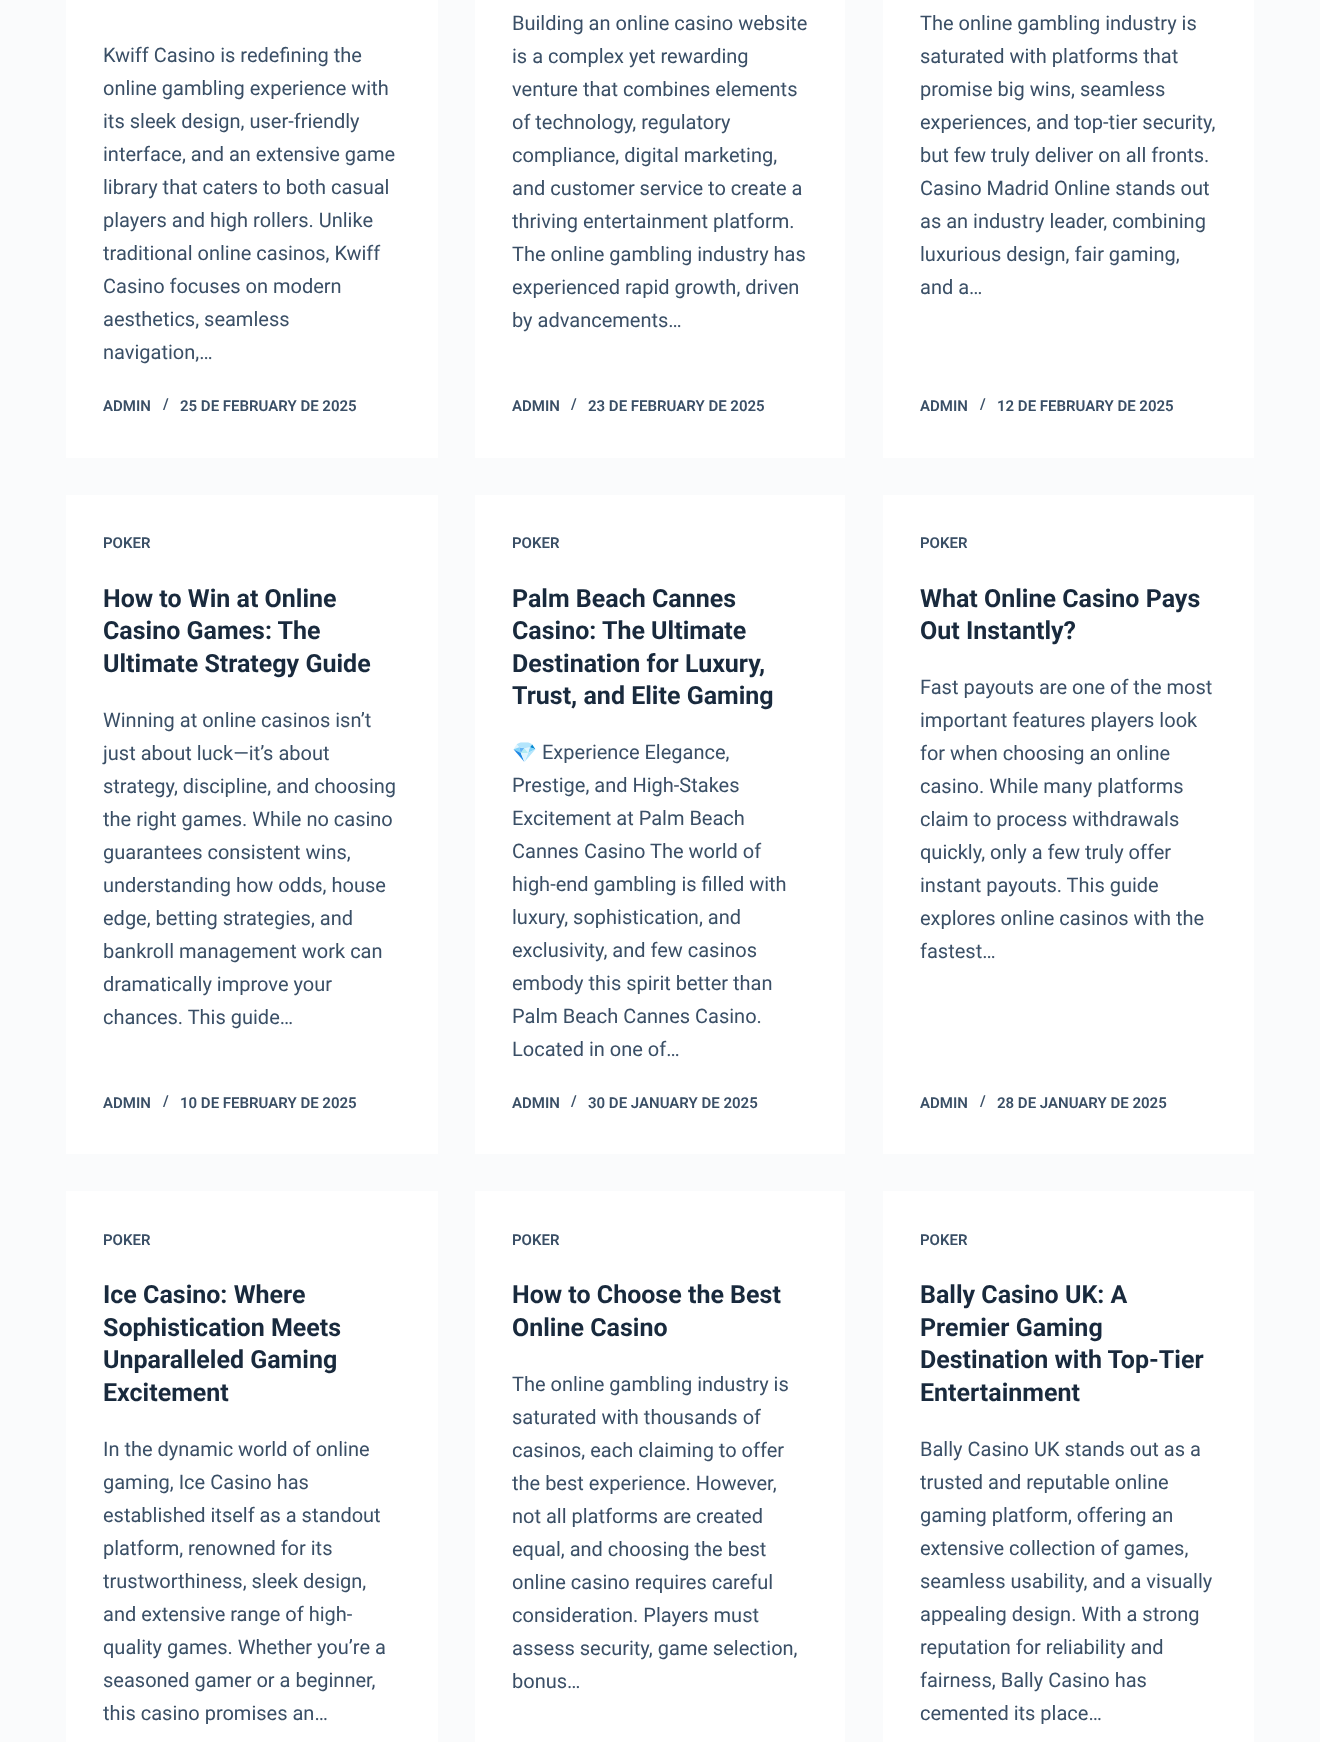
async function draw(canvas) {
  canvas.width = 1320
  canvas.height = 1742
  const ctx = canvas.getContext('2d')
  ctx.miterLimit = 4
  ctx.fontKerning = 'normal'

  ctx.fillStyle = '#fafbfc'
  ctx.fillRect(0, 0, 1320, 1742)
  ctx.fillStyle = '#fff'
  ctx.fillRect(66, 0, 372, 458)
  ctx.font = '20px Roboto'
  ctx.fillStyle = '#3a4f66'
  ctx.fillText('Kwiff Casino is redefining the', 103, 62)
  ctx.fillText('online gambling experience with', 103, 95)
  ctx.fillText('its sleek design, user-friendly', 103, 128)
  ctx.fillText('interface, and an extensive game', 103, 161)
  ctx.fillText('library that caters to both casual', 103, 194)
  ctx.fillText('players and high rollers. Unlike', 103, 227)
  ctx.fillText('traditional online casinos, Kwiff', 103, 260)
  ctx.fillText('Casino focuses on modern', 103, 293)
  ctx.fillText('aesthetics, seamless', 103, 326)
  ctx.fillText('navigation,…', 103, 359)
  ctx.font = '600 15px Roboto'
  ctx.fillText('ADMIN', 103, 411)
  ctx.fillText('/', 163, 409)
  ctx.fillText('25 DE FEBRUARY DE 2025', 180, 411)
  ctx.fillStyle = '#fff'
  ctx.fillRect(475, 0, 370, 458)
  ctx.font = '20px Roboto'
  ctx.fillStyle = '#3a4f66'
  ctx.fillText('Building an online casino website', 512, 30)
  ctx.fillText('is a complex yet rewarding', 512, 63)
  ctx.fillText('venture that combines elements', 512, 96)
  ctx.fillText('of technology, regulatory', 512, 129)
  ctx.fillText('compliance, digital marketing,', 512, 162)
  ctx.fillText('and customer service to create a', 512, 195)
  ctx.fillText('thriving entertainment platform.', 512, 228)
  ctx.fillText('The online gambling industry has', 512, 261)
  ctx.fillText('experienced rapid growth, driven', 512, 294)
  ctx.fillText('by advancements…', 512, 327)
  ctx.font = '600 15px Roboto'
  ctx.fillText('ADMIN', 512, 411)
  ctx.fillText('/', 571, 409)
  ctx.fillText('23 DE FEBRUARY DE 2025', 588, 411)
  ctx.fillStyle = '#fff'
  ctx.fillRect(883, 0, 371, 458)
  ctx.font = '20px Roboto'
  ctx.fillStyle = '#3a4f66'
  ctx.fillText('The online gambling industry is', 920, 30)
  ctx.fillText('saturated with platforms that', 920, 63)
  ctx.fillText('promise big wins, seamless', 920, 96)
  ctx.fillText('experiences, and top-tier security,', 920, 129)
  ctx.fillText('but few truly deliver on all fronts.', 920, 162)
  ctx.fillText('Casino Madrid Online stands out', 920, 195)
  ctx.fillText('as an industry leader, combining', 920, 228)
  ctx.fillText('luxurious design, fair gaming,', 920, 261)
  ctx.fillText('and a…', 920, 294)
  ctx.font = '600 15px Roboto'
  ctx.fillText('ADMIN', 920, 411)
  ctx.fillText('/', 980, 409)
  ctx.fillText('12 DE FEBRUARY DE 2025', 997, 411)
  ctx.fillStyle = '#fff'
  ctx.fillRect(66, 495, 372, 659)
  ctx.fillStyle = '#3a4f66'
  ctx.fillText('POKER', 103, 548)
  ctx.font = 'bold 25px Roboto'
  ctx.fillStyle = '#192a3d'
  ctx.fillText('How to Win at Online', 103, 607)
  ctx.fillText('Casino Games: The', 103, 639)
  ctx.fillText('Ultimate Strategy Guide', 103, 672)
  ctx.font = '20px Roboto'
  ctx.fillStyle = '#3a4f66'
  ctx.fillText('Winning at online casinos isn’t', 103, 727)
  ctx.fillText('just about luck—it’s about', 103, 760)
  ctx.fillText('strategy, discipline, and choosing', 103, 793)
  ctx.fillText('the right games. While no casino', 103, 826)
  ctx.fillText('guarantees consistent wins,', 103, 859)
  ctx.fillText('understanding how odds, house', 103, 892)
  ctx.fillText('edge, betting strategies, and', 103, 925)
  ctx.fillText('bankroll management work can', 103, 958)
  ctx.fillText('dramatically improve your', 103, 991)
  ctx.fillText('chances. This guide…', 103, 1024)
  ctx.font = '600 15px Roboto'
  ctx.fillText('ADMIN', 103, 1108)
  ctx.fillText('/', 163, 1106)
  ctx.fillText('10 DE FEBRUARY DE 2025', 180, 1108)
  ctx.fillStyle = '#fff'
  ctx.fillRect(475, 495, 370, 659)
  ctx.fillStyle = '#3a4f66'
  ctx.fillText('POKER', 512, 548)
  ctx.font = 'bold 25px Roboto'
  ctx.fillStyle = '#192a3d'
  ctx.fillText('Palm Beach Cannes', 512, 607)
  ctx.fillText('Casino: The Ultimate', 512, 639)
  ctx.fillText('Destination for Luxury,', 512, 672)
  ctx.fillText('Trust, and Elite Gaming', 512, 704)
  ctx.font = '20px Noto Color Emoji'
  ctx.fillStyle = '#3a4f66'
  ctx.fillText('💎', 512, 759)
  ctx.font = '20px Roboto'
  ctx.fillText('Experience Elegance,', 542, 759)
  ctx.fillText('Prestige, and High-Stakes', 512, 792)
  ctx.fillText('Excitement at Palm Beach', 512, 825)
  ctx.fillText('Cannes Casino The world of', 512, 858)
  ctx.fillText('high-end gambling is filled with', 512, 891)
  ctx.fillText('luxury, sophistication, and', 512, 924)
  ctx.fillText('exclusivity, and few casinos', 512, 957)
  ctx.fillText('embody this spirit better than', 512, 990)
  ctx.fillText('Palm Beach Cannes Casino.', 512, 1023)
  ctx.fillText('Located in one of…', 512, 1056)
  ctx.font = '600 15px Roboto'
  ctx.fillText('ADMIN', 512, 1108)
  ctx.fillText('/', 571, 1106)
  ctx.fillText('30 DE JANUARY DE 2025', 588, 1108)
  ctx.fillStyle = '#fff'
  ctx.fillRect(883, 495, 371, 659)
  ctx.fillStyle = '#3a4f66'
  ctx.fillText('POKER', 920, 548)
  ctx.font = 'bold 25px Roboto'
  ctx.fillStyle = '#192a3d'
  ctx.fillText('What Online Casino Pays', 920, 607)
  ctx.fillText('Out Instantly?', 920, 639)
  ctx.font = '20px Roboto'
  ctx.fillStyle = '#3a4f66'
  ctx.fillText('Fast payouts are one of the most', 920, 694)
  ctx.fillText('important features players look', 920, 727)
  ctx.fillText('for when choosing an online', 920, 760)
  ctx.fillText('casino. While many platforms', 920, 793)
  ctx.fillText('claim to process withdrawals', 920, 826)
  ctx.fillText('quickly, only a few truly offer', 920, 859)
  ctx.fillText('instant payouts. This guide', 920, 892)
  ctx.fillText('explores online casinos with the', 920, 925)
  ctx.fillText('fastest…', 920, 958)
  ctx.font = '600 15px Roboto'
  ctx.fillText('ADMIN', 920, 1108)
  ctx.fillText('/', 980, 1106)
  ctx.fillText('28 DE JANUARY DE 2025', 997, 1108)
  ctx.fillStyle = '#fff'
  ctx.fillRect(66, 1191, 372, 551)
  ctx.fillStyle = '#3a4f66'
  ctx.fillText('POKER', 103, 1245)
  ctx.font = 'bold 25px Roboto'
  ctx.fillStyle = '#192a3d'
  ctx.fillText('Ice Casino: Where', 103, 1303)
  ctx.fillText('Sophistication Meets', 103, 1336)
  ctx.fillText('Unparalleled Gaming', 103, 1368)
  ctx.fillText('Excitement', 103, 1401)
  ctx.font = '20px Roboto'
  ctx.fillStyle = '#3a4f66'
  ctx.fillText('In the dynamic world of online', 103, 1456)
  ctx.fillText('gaming, Ice Casino has', 103, 1489)
  ctx.fillText('established itself as a standout', 103, 1522)
  ctx.fillText('platform, renowned for its', 103, 1555)
  ctx.fillText('trustworthiness, sleek design,', 103, 1588)
  ctx.fillText('and extensive range of high-', 103, 1621)
  ctx.fillText('quality games. Whether you’re a', 103, 1654)
  ctx.fillText('seasoned gamer or a beginner,', 103, 1687)
  ctx.fillText('this casino promises an…', 103, 1720)
  ctx.fillStyle = '#fff'
  ctx.fillRect(475, 1191, 370, 551)
  ctx.font = '600 15px Roboto'
  ctx.fillStyle = '#3a4f66'
  ctx.fillText('POKER', 512, 1245)
  ctx.font = 'bold 25px Roboto'
  ctx.fillStyle = '#192a3d'
  ctx.fillText('How to Choose the Best', 512, 1303)
  ctx.fillText('Online Casino', 512, 1336)
  ctx.font = '20px Roboto'
  ctx.fillStyle = '#3a4f66'
  ctx.fillText('The online gambling industry is', 512, 1391)
  ctx.fillText('saturated with thousands of', 512, 1424)
  ctx.fillText('casinos, each claiming to offer', 512, 1457)
  ctx.fillText('the best experience. However,', 512, 1490)
  ctx.fillText('not all platforms are created', 512, 1523)
  ctx.fillText('equal, and choosing the best', 512, 1556)
  ctx.fillText('online casino requires careful', 512, 1589)
  ctx.fillText('consideration. Players must', 512, 1622)
  ctx.fillText('assess security, game selection,', 512, 1655)
  ctx.fillText('bonus…', 512, 1688)
  ctx.fillStyle = '#fff'
  ctx.fillRect(883, 1191, 371, 551)
  ctx.font = '600 15px Roboto'
  ctx.fillStyle = '#3a4f66'
  ctx.fillText('POKER', 920, 1245)
  ctx.font = 'bold 25px Roboto'
  ctx.fillStyle = '#192a3d'
  ctx.fillText('Bally Casino UK: A', 920, 1303)
  ctx.fillText('Premier Gaming', 920, 1336)
  ctx.fillText('Destination with Top-Tier', 920, 1368)
  ctx.fillText('Entertainment', 920, 1401)
  ctx.font = '20px Roboto'
  ctx.fillStyle = '#3a4f66'
  ctx.fillText('Bally Casino UK stands out as a', 920, 1456)
  ctx.fillText('trusted and reputable online', 920, 1489)
  ctx.fillText('gaming platform, offering an', 920, 1522)
  ctx.fillText('extensive collection of games,', 920, 1555)
  ctx.fillText('seamless usability, and a visually', 920, 1588)
  ctx.fillText('appealing design. With a strong', 920, 1621)
  ctx.fillText('reputation for reliability and', 920, 1654)
  ctx.fillText('fairness, Bally Casino has', 920, 1687)
  ctx.fillText('cemented its place…', 920, 1720)
}

draw(document.querySelector('canvas'))
